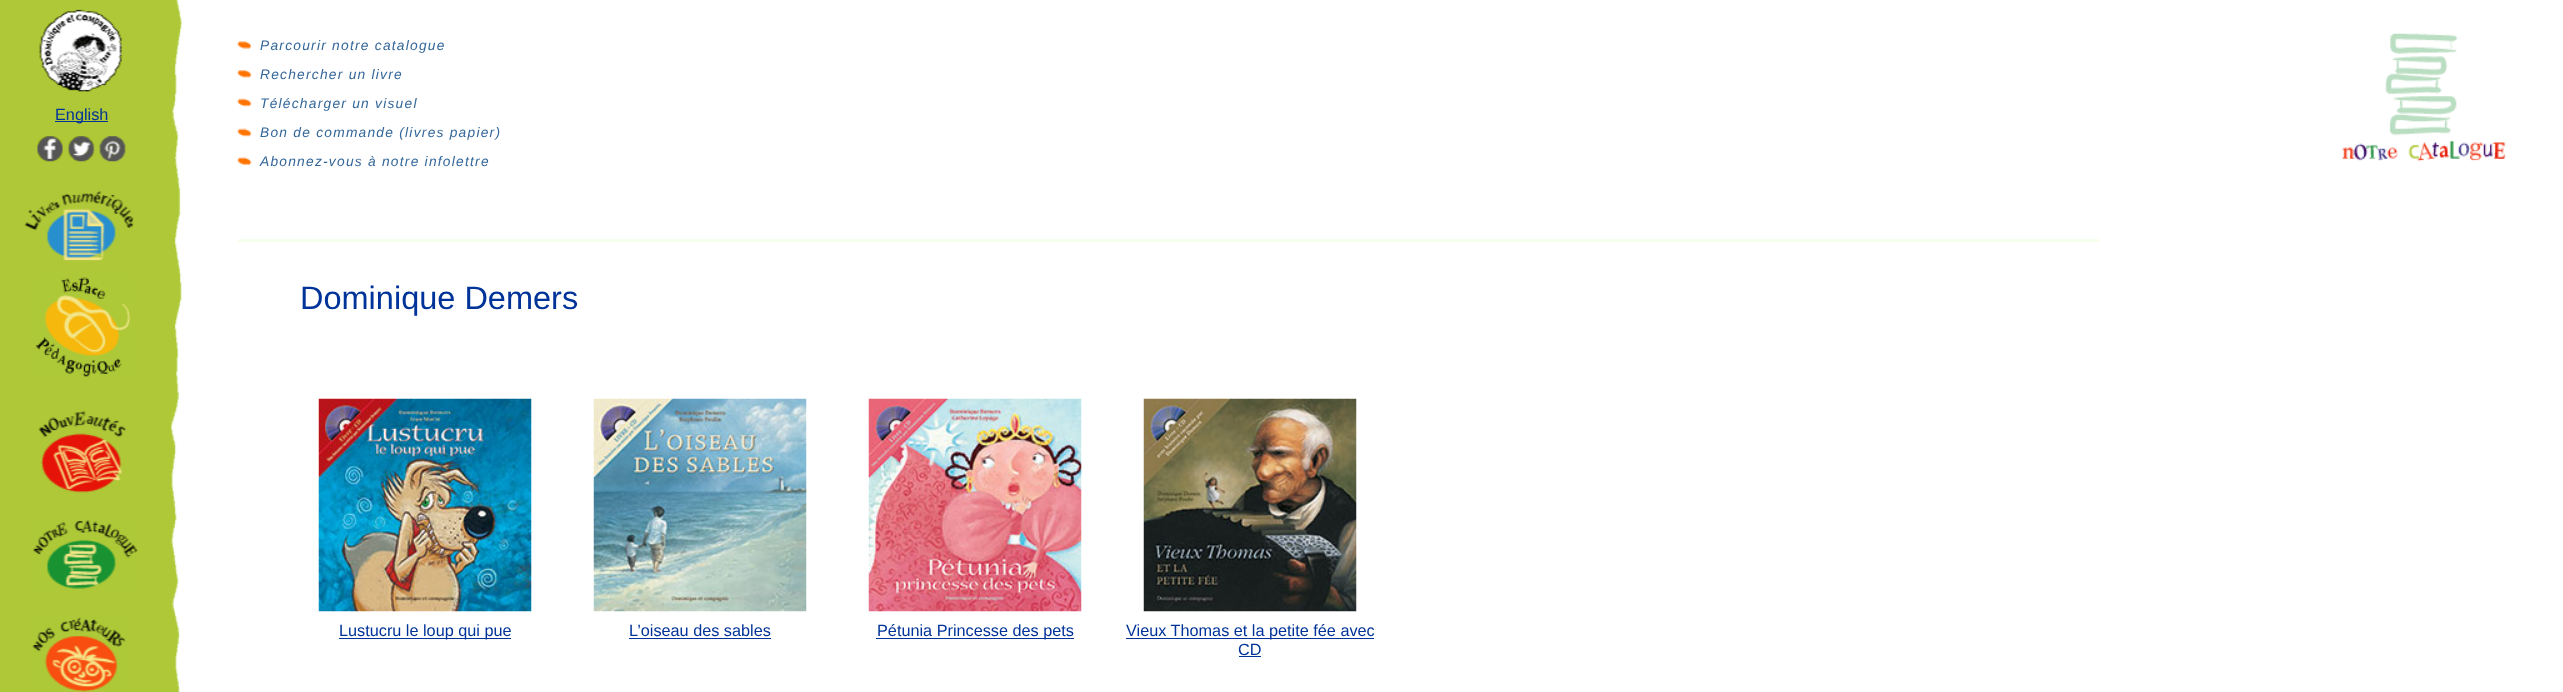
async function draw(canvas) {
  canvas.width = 2563
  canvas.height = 692
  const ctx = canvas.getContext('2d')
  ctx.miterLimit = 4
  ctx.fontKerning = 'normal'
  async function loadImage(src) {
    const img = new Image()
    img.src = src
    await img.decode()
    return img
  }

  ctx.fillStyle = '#fff'
  ctx.fillRect(0, 0, 2563, 692)
  ctx.drawImage(await loadImage('image0.png'), 0, 0, 183, 692)
  ctx.drawImage(await loadImage('image1.png'), 39, 9, 83, 83)
  ctx.fillStyle = '#039'
  ctx.fillRect(55, 121, 53, 1)
  ctx.font = '16.25px Liberation Sans'
  ctx.fillText('English', 55, 120)
  ctx.drawImage(await loadImage('image2.png'), 37, 136, 26, 26)
  ctx.drawImage(await loadImage('image3.png'), 68, 136, 27, 26)
  ctx.drawImage(await loadImage('image4.png'), 99, 136, 27, 26)
  ctx.drawImage(await loadImage('image5.png'), 24, 191, 110, 70)
  ctx.drawImage(await loadImage('image6.png'), 35, 277, 96, 100)
  ctx.drawImage(await loadImage('image7.png'), 38, 411, 88, 82)
  ctx.drawImage(await loadImage('image8.png'), 33, 520, 105, 69)
  ctx.drawImage(await loadImage('image9.png'), 32, 617, 94, 75)
  ctx.drawImage(await loadImage('image10.png'), 237, 41, 15, 8)
  ctx.letterSpacing = '1.25px'
  ctx.font = 'italic 13.75px Liberation Sans'
  ctx.fillStyle = '#369'
  ctx.fillText('Parcourir notre catalogue', 260, 50)
  ctx.drawImage(await loadImage('image11.png'), 237, 70, 15, 8)
  ctx.fillText('Rechercher un livre', 260, 79)
  ctx.drawImage(await loadImage('image12.png'), 237, 98, 15, 9)
  ctx.fillText('Télécharger un visuel', 260, 108)
  ctx.drawImage(await loadImage('image12.png'), 237, 128, 15, 9)
  ctx.fillText('Bon de commande (livres papier)', 260, 137)
  ctx.drawImage(await loadImage('image13.png'), 237, 157, 15, 8)
  ctx.fillText('Abonnez-vous à notre infolettre', 260, 166)
  ctx.drawImage(await loadImage('image14.png'), 2342, 33, 164, 129)
  ctx.fillStyle = '#f4ffec'
  ctx.fillRect(238, 239, 1861, 3)
  ctx.letterSpacing = '0px'
  ctx.font = '32.5px Liberation Sans'
  ctx.fillStyle = '#039'
  ctx.fillText('Dominique Demers', 300, 309)
  ctx.drawImage(await loadImage('image15.png'), 318, 398, 214, 214)
  ctx.fillRect(339, 638, 172, 1)
  ctx.font = '16.25px Liberation Sans'
  ctx.fillText('Lustucru le loup qui pue', 339, 636)
  ctx.drawImage(await loadImage('image16.png'), 593, 398, 214, 214)
  ctx.fillText('L’oiseau des sables', 629, 636)
  ctx.fillRect(629, 638, 142, 1)
  ctx.drawImage(await loadImage('image17.png'), 868, 398, 214, 214)
  ctx.fillRect(876, 638, 198, 1)
  ctx.fillText('Pétunia Princesse des pets', 877, 636)
  ctx.drawImage(await loadImage('image18.png'), 1143, 398, 214, 214)
  ctx.fillRect(1126, 638, 248, 1)
  ctx.fillText('Vieux Thomas et la petite fée avec', 1126, 636)
  ctx.fillText('CD', 1238, 655)
  ctx.fillRect(1239, 656, 22, 1)
}

draw(document.querySelector('canvas'))
